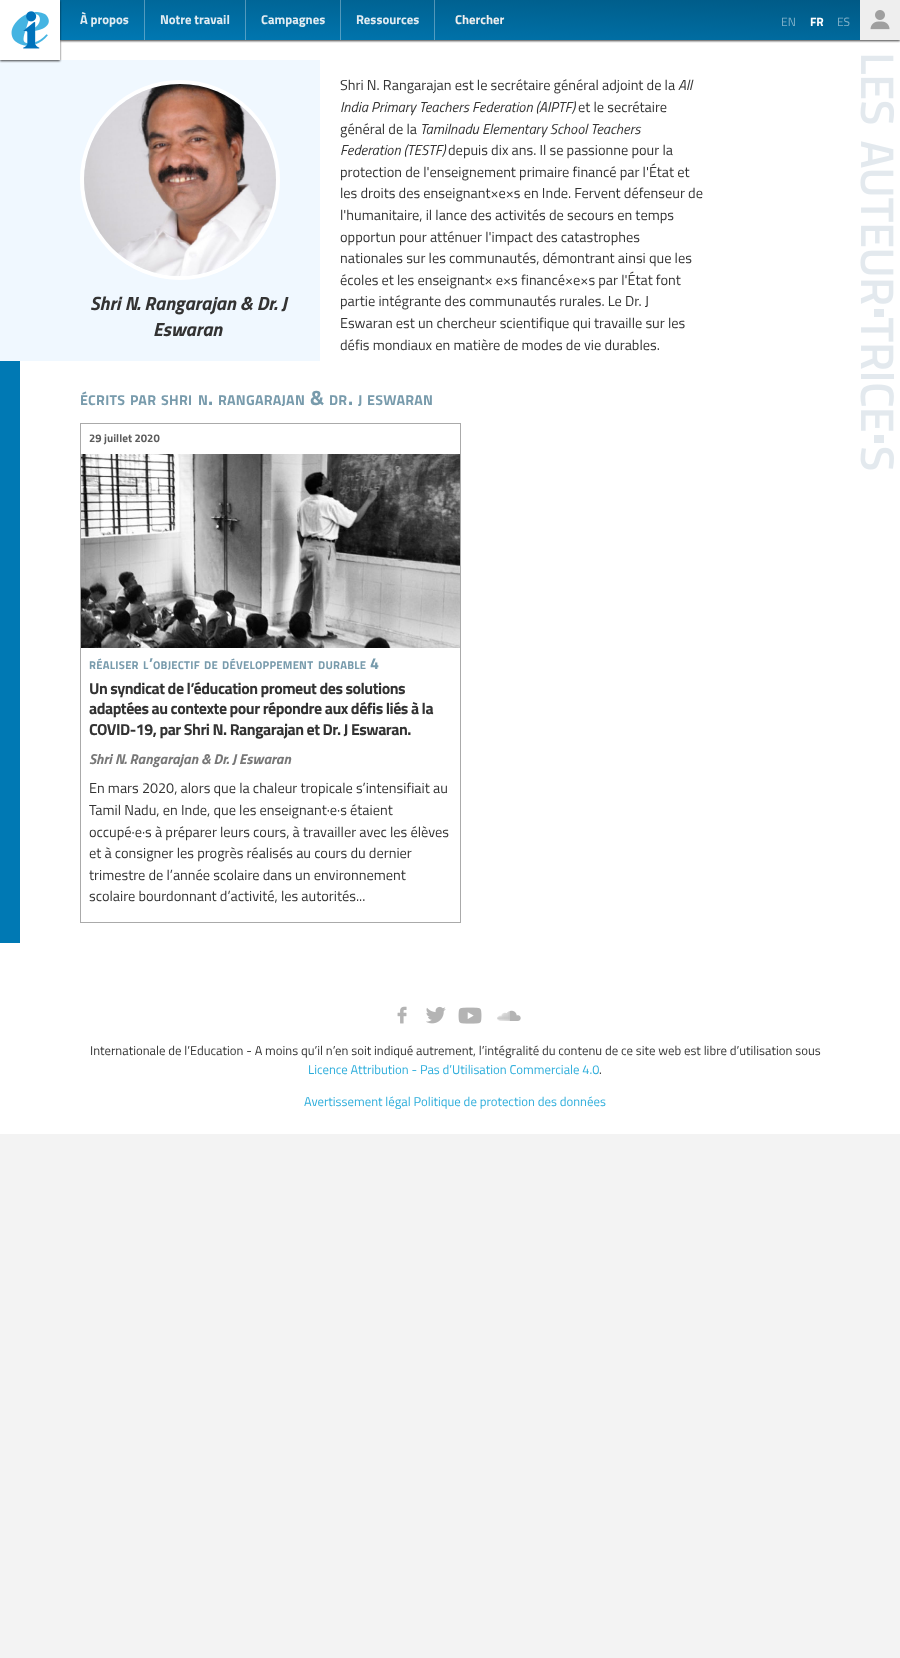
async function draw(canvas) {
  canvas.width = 900
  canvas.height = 1658
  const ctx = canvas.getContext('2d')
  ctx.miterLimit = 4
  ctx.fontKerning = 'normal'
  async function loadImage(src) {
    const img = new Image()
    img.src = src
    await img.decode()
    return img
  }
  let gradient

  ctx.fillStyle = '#f3f3f3'
  ctx.fillRect(0, 0, 900, 1658)
  ctx.fillStyle = '#fff'
  ctx.fillRect(0, 943, 900, 191)
  ctx.fillRect(20, 40, 880, 903)
  ctx.fillStyle = '#000000bf'
  ctx.filter = 'blur(1px)'
  ctx.beginPath()
  ctx.rect(60, 1, 840, 40)
  ctx.fill()
  ctx.filter = 'none'
  gradient = ctx.createLinearGradient(478, 60, 482, -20)
  gradient.addColorStop(0, '#0079b4')
  gradient.addColorStop(0.25, '#0071a8')
  gradient.addColorStop(0.5, '#00699c')
  gradient.addColorStop(0.75, '#006190')
  gradient.addColorStop(1, '#005985')
  ctx.fillStyle = gradient
  ctx.fillRect(60, 0, 800, 40)
  ctx.fillStyle = '#f0f8ff'
  ctx.fillRect(0, 60, 320, 301)
  ctx.fillStyle = '#000000bf'
  ctx.filter = 'blur(1px)'
  ctx.beginPath()
  ctx.rect(0, 1, 60, 60)
  ctx.fill()
  ctx.filter = 'none'
  ctx.drawImage(await loadImage('image0.png'), 0, 0, 60, 60)
  ctx.fillStyle = '#fafafa54'
  ctx.fillRect(144, 0, 1, 40)
  ctx.font = 'bold 12.8px Titillium Web'
  ctx.fillStyle = '#e1ecf2'
  ctx.fillText('À propos', 80, 24)
  ctx.fillStyle = '#fafafa54'
  ctx.fillRect(245, 0, 1, 40)
  ctx.fillStyle = '#e1ecf2'
  ctx.fillText('Notre travail', 160, 24)
  ctx.fillStyle = '#fafafa54'
  ctx.fillRect(340, 0, 1, 40)
  ctx.fillStyle = '#e1ecf2'
  ctx.fillText('Campagnes', 261, 24)
  ctx.fillStyle = '#fafafa54'
  ctx.fillRect(434, 0, 1, 40)
  ctx.fillStyle = '#e1ecf2'
  ctx.fillText('Ressources', 356, 24)
  ctx.fillStyle = '#eee'
  ctx.fillText('Chercher', 455, 24)
  ctx.font = '12px Titillium Web'
  ctx.fillStyle = '#80b1c9'
  ctx.fillText('EN', 781, 26)
  ctx.font = 'bold 12px Titillium Web'
  ctx.fillStyle = '#fff'
  ctx.fillText('FR', 810, 26)
  ctx.font = '12px Titillium Web'
  ctx.fillStyle = '#80b1c9'
  ctx.fillText('ES', 837, 26)
  ctx.fillStyle = '#eee'
  ctx.fillRect(860, 0, 40, 40)
  ctx.drawImage(await loadImage('image1.png'), 870, 10, 20, 20)
  ctx.drawImage(await loadImage('image2.png'), 860, 55, 34, 415)
  ctx.fillStyle = '#0079b4'
  ctx.fillRect(0, 361, 20, 582)
  ctx.font = '14.4px Titillium Web'
  ctx.fillStyle = '#333'
  ctx.fillText('Shri N. Rangarajan est le secrétaire général adjoint de la', 340, 90)
  ctx.font = 'italic 14.4px Titillium Web'
  ctx.fillText('All', 678, 90)
  ctx.fillText('India Primary Teachers Federation (AIPTF)', 340, 112)
  ctx.font = '14.4px Titillium Web'
  ctx.fillText('et le secrétaire', 578, 112)
  ctx.fillText('général de la', 340, 134)
  ctx.font = 'italic 14.4px Titillium Web'
  ctx.fillText('Tamilnadu Elementary School Teachers', 420, 134)
  ctx.fillText('Federation (TESTF)', 340, 155)
  ctx.font = '14.4px Titillium Web'
  ctx.fillText('depuis dix ans. Il se passionne pour la', 448, 155)
  ctx.fillText('protection de l\'enseignement primaire financé par l\'État et', 340, 177)
  ctx.fillText('les droits des enseignant×e×s en Inde. Fervent défenseur de', 340, 198)
  ctx.fillText('l\'humanitaire, il lance des activités de secours en temps', 340, 220)
  ctx.fillText('opportun pour atténuer l\'impact des catastrophes', 340, 242)
  ctx.fillText('nationales sur les communautés, démontrant ainsi que les', 340, 263)
  ctx.fillText('écoles et les enseignant× e×s financé×e×s par l\'État font', 340, 285)
  ctx.fillText('partie intégrante des communautés rurales. Le Dr. J', 340, 306)
  ctx.fillText('Eswaran est un chercheur scientifique qui travaille sur les', 340, 328)
  ctx.fillText('défis mondiaux en matière de modes de vie durables.', 340, 350)
  ctx.letterSpacing = '0.25px'
  ctx.font = 'bold 14.25px Titillium Web'
  ctx.fillStyle = '#789bac'
  ctx.fillText('ÉCRITS', 80, 405)
  ctx.fillText('PAR', 130, 405)
  ctx.fillText('SHRI', 161, 405)
  ctx.fillText('N', 198, 405)
  ctx.font = 'bold 20px Titillium Web'
  ctx.fillText('.', 208, 405)
  ctx.font = 'bold 14.25px Titillium Web'
  ctx.fillText('RANGARAJAN', 218, 405)
  ctx.font = 'bold 20px Titillium Web'
  ctx.fillText('&', 310, 405)
  ctx.font = 'bold 14.25px Titillium Web'
  ctx.fillText('DR', 329, 405)
  ctx.font = 'bold 20px Titillium Web'
  ctx.fillText('.', 348, 405)
  ctx.font = 'bold 14.25px Titillium Web'
  ctx.fillText('J', 358, 405)
  ctx.fillText('ESWARAN', 367, 405)
  ctx.strokeStyle = '#aaa'
  ctx.strokeRect(80.5, 423.5, 380, 499)
  ctx.letterSpacing = '0px'
  ctx.font = 'bold 11.25px Titillium Web'
  ctx.fillStyle = '#5c5c5c'
  ctx.fillText('29 juillet 2020', 89, 442)
  ctx.letterSpacing = '0.25px'
  ctx.fillStyle = '#789bac'
  ctx.fillText('RÉALISER', 89, 669)
  ctx.fillText('L', 143, 669)
  ctx.font = 'bold 16px Titillium Web'
  ctx.fillText('’', 149, 669)
  ctx.font = 'bold 11.25px Titillium Web'
  ctx.fillText('OBJECTIF', 153, 669)
  ctx.fillText('DE', 204, 669)
  ctx.fillText('DÉVELOPPEMENT', 222, 669)
  ctx.fillText('DURABLE', 318, 669)
  ctx.font = 'bold 16px Titillium Web'
  ctx.fillText('4', 370, 669)
  ctx.letterSpacing = '-0.5px'
  ctx.fillStyle = '#333'
  ctx.fillText('Un syndicat de l’éducation promeut des solutions', 89, 694)
  ctx.fillText('adaptées au contexte pour répondre aux défis liés à la', 89, 714)
  ctx.fillText('COVID-19, par Shri N. Rangarajan et Dr. J Eswaran.', 89, 735)
  ctx.letterSpacing = '0px'
  ctx.font = 'italic bold 14.4px Titillium Web'
  ctx.fillStyle = '#787878'
  ctx.fillText('Shri N. Rangarajan & Dr. J Eswaran', 89, 764)
  ctx.drawImage(await loadImage('image3.png'), 81, 454, 379, 194)
  ctx.font = '14.4px Titillium Web'
  ctx.fillStyle = '#333'
  ctx.fillText('En mars 2020, alors que la chaleur tropicale s’intensifiait au', 89, 793)
  ctx.fillText('Tamil Nadu, en Inde, que les enseignant·e·s étaient', 89, 815)
  ctx.fillText('occupé·e·s à préparer leurs cours, à travailler avec les élèves', 89, 837)
  ctx.fillText('et à consigner les progrès réalisés au cours du dernier', 89, 858)
  ctx.fillText('trimestre de l’année scolaire dans un environnement', 89, 880)
  ctx.fillText('scolaire bourdonnant d’activité, les autorités...', 89, 901)
  ctx.beginPath()
  ctx.arc(180, 180, 98, 0, 2 * Math.PI)
  ctx.strokeStyle = '#fff'
  ctx.lineWidth = 4
  ctx.stroke()
  ctx.drawImage(await loadImage('image4.png'), 84, 84, 192, 192)
  ctx.font = 'italic bold 19.25px Titillium Web'
  ctx.fillText('Shri N. Rangarajan & Dr. J', 90, 310)
  ctx.fillText('Eswaran', 153, 336)
  ctx.drawImage(await loadImage('image5.png'), 397, 1006, 10, 18)
  ctx.drawImage(await loadImage('image6.png'), 426, 1006, 20, 18)
  ctx.drawImage(await loadImage('image7.png'), 458, 1007, 24, 17)
  ctx.drawImage(await loadImage('image8.png'), 497, 1010, 24, 11)
  ctx.font = '12.8px Titillium Web'
  ctx.fillText('Internationale de l’Education - A moins qu’il n’en soit indiqué autrement, l’intégralité du contenu de ce site web est libre d’utilisation sous', 90, 1055)
  ctx.fillStyle = '#2caddb'
  ctx.fillText('Licence Attribution - Pas d’Utilisation Commerciale 4.0', 308, 1074)
  ctx.fillStyle = '#333'
  ctx.fillText('.', 599, 1074)
  ctx.fillStyle = '#2caddb'
  ctx.fillText('Avertissement légal Politique de protection des données', 304, 1106)
}

draw(document.querySelector('canvas'))
